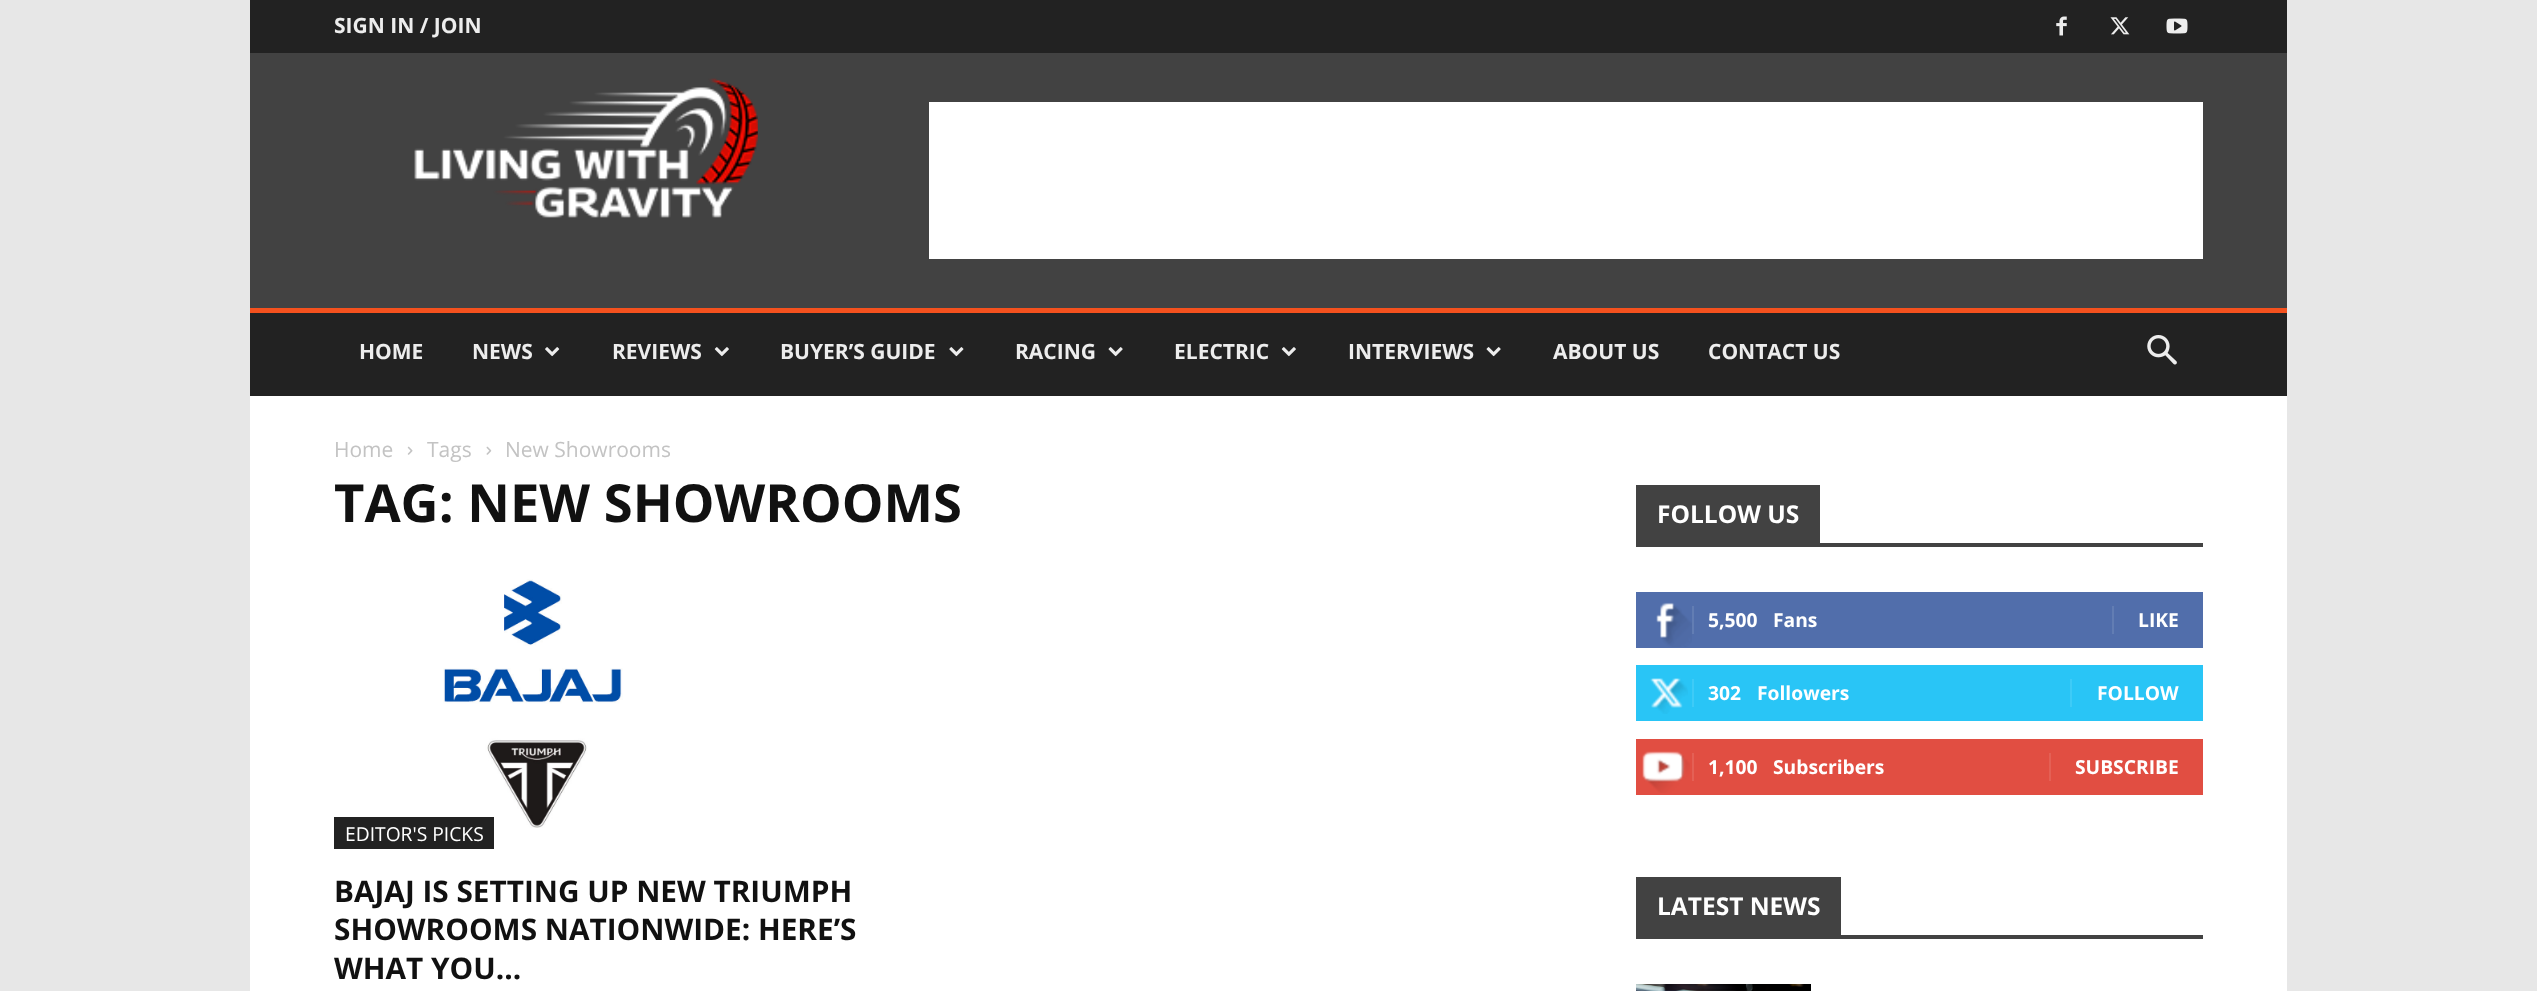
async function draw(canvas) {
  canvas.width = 2537
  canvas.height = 991
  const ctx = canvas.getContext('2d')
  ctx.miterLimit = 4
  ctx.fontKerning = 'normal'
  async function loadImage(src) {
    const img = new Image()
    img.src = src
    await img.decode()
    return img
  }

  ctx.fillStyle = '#e7e7e7'
  ctx.fillRect(0, 0, 2537, 991)
  ctx.fillStyle = '#222'
  ctx.fillRect(250, 0, 2037, 53)
  ctx.font = 'bold 21px Open Sans'
  ctx.fillStyle = '#ededed'
  ctx.fillText('SIGN IN / JOIN', 334, 33)
  ctx.drawImage(await loadImage('image0.png'), 2056, 16, 11, 20)
  ctx.drawImage(await loadImage('image1.png'), 2110, 17, 20, 18)
  ctx.drawImage(await loadImage('image2.png'), 2166, 18, 22, 16)
  ctx.fillStyle = '#424242'
  ctx.fillRect(250, 53, 2037, 255)
  ctx.drawImage(await loadImage('image3.png'), 414, 78, 344, 140)
  ctx.fillStyle = '#fff'
  ctx.fillRect(929, 102, 1274, 157)
  ctx.fillStyle = '#222'
  ctx.fillRect(250, 313, 2037, 83)
  ctx.fillStyle = '#f4511e'
  ctx.fillRect(250, 308, 2037, 5)
  ctx.fillStyle = '#ededed'
  ctx.fillText('HOME', 359, 359)
  ctx.fillText('NEWS', 472, 359)
  ctx.drawImage(await loadImage('image4.png'), 545, 347, 15, 10)
  ctx.fillText('REVIEWS', 612, 359)
  ctx.drawImage(await loadImage('image5.png'), 714, 347, 15, 10)
  ctx.fillText('BUYER’S GUIDE', 780, 359)
  ctx.drawImage(await loadImage('image6.png'), 949, 347, 15, 10)
  ctx.fillText('RACING', 1015, 359)
  ctx.drawImage(await loadImage('image7.png'), 1108, 347, 15, 10)
  ctx.fillText('ELECTRIC', 1174, 359)
  ctx.drawImage(await loadImage('image5.png'), 1281, 347, 15, 10)
  ctx.fillText('INTERVIEWS', 1348, 359)
  ctx.drawImage(await loadImage('image7.png'), 1486, 347, 15, 10)
  ctx.fillText('ABOUT US', 1553, 359)
  ctx.fillText('CONTACT US', 1708, 359)
  ctx.drawImage(await loadImage('image8.png'), 2147, 335, 30, 30)
  ctx.fillStyle = '#fff'
  ctx.fillRect(250, 396, 2037, 595)
  ctx.font = '21px Open Sans'
  ctx.fillStyle = '#c3c3c3'
  ctx.fillText('Home', 334, 457)
  ctx.drawImage(await loadImage('image9.png'), 407, 446, 6, 9)
  ctx.fillText('Tags', 427, 457)
  ctx.drawImage(await loadImage('image10.png'), 486, 446, 6, 9)
  ctx.fillText('New Showrooms', 505, 457)
  ctx.font = 'bold 52.5px Open Sans'
  ctx.fillStyle = '#111'
  ctx.fillText('TAG: NEW SHOWROOMS', 334, 522)
  ctx.drawImage(await loadImage('image11.png'), 443, 579, 180, 249)
  ctx.fillStyle = '#222'
  ctx.fillRect(334, 817, 160, 32)
  ctx.font = '19.25px Open Sans'
  ctx.fillStyle = '#fff'
  ctx.fillText('EDITOR\'S PICKS', 345, 841)
  ctx.font = 'bold 29.75px Open Sans'
  ctx.fillStyle = '#111'
  ctx.fillText('BAJAJ IS SETTING UP NEW TRIUMPH', 334, 902)
  ctx.fillText('SHOWROOMS NATIONWIDE: HERE’S', 334, 940)
  ctx.fillText('WHAT YOU...', 334, 979)
  ctx.fillStyle = '#424242'
  ctx.fillRect(1636, 543, 567, 4)
  ctx.fillRect(1636, 485, 184, 58)
  ctx.font = 'bold 24.5px Open Sans'
  ctx.fillStyle = '#fff'
  ctx.fillText('FOLLOW US', 1657, 523)
  ctx.fillStyle = '#516eab'
  ctx.fillRect(1636, 592, 567, 56)
  ctx.drawImage(await loadImage('image12.png'), 1656, 602, 36, 45)
  ctx.fillStyle = '#627db3'
  ctx.fillRect(1692, 606, 2, 28)
  ctx.font = 'bold 19.25px Open Sans'
  ctx.fillStyle = '#fff'
  ctx.fillText('5,500', 1708, 627)
  ctx.fillText('Fans', 1773, 627)
  ctx.fillStyle = '#627db3'
  ctx.fillRect(2112, 606, 2, 28)
  ctx.fillStyle = '#fff'
  ctx.fillText('LIKE', 2138, 627)
  ctx.fillStyle = '#29c5f6'
  ctx.fillRect(1636, 665, 567, 56)
  ctx.drawImage(await loadImage('image13.png'), 1650, 678, 38, 36)
  ctx.fillStyle = '#3ecbf7'
  ctx.fillRect(1692, 679, 2, 28)
  ctx.fillStyle = '#fff'
  ctx.fillText('302', 1708, 700)
  ctx.fillText('Followers', 1757, 700)
  ctx.fillStyle = '#3ecbf7'
  ctx.fillRect(2070, 679, 2, 28)
  ctx.fillStyle = '#fff'
  ctx.fillText('FOLLOW', 2097, 700)
  ctx.fillStyle = '#e14e42'
  ctx.fillRect(1636, 739, 567, 56)
  ctx.drawImage(await loadImage('image14.png'), 1642, 751, 48, 42)
  ctx.fillStyle = '#e46055'
  ctx.fillRect(1692, 753, 2, 28)
  ctx.fillStyle = '#fff'
  ctx.fillText('1,100', 1708, 774)
  ctx.fillText('Subscribers', 1773, 774)
  ctx.fillStyle = '#e46055'
  ctx.fillRect(2049, 753, 2, 28)
  ctx.fillStyle = '#fff'
  ctx.fillText('SUBSCRIBE', 2075, 774)
  ctx.fillStyle = '#424242'
  ctx.fillRect(1636, 935, 567, 4)
  ctx.fillRect(1636, 877, 205, 58)
  ctx.font = 'bold 24.5px Open Sans'
  ctx.fillStyle = '#fff'
  ctx.fillText('LATEST NEWS', 1657, 915)
  ctx.drawImage(await loadImage('image15.png'), 1636, 984, 175, 7)
}

draw(document.querySelector('canvas'))
